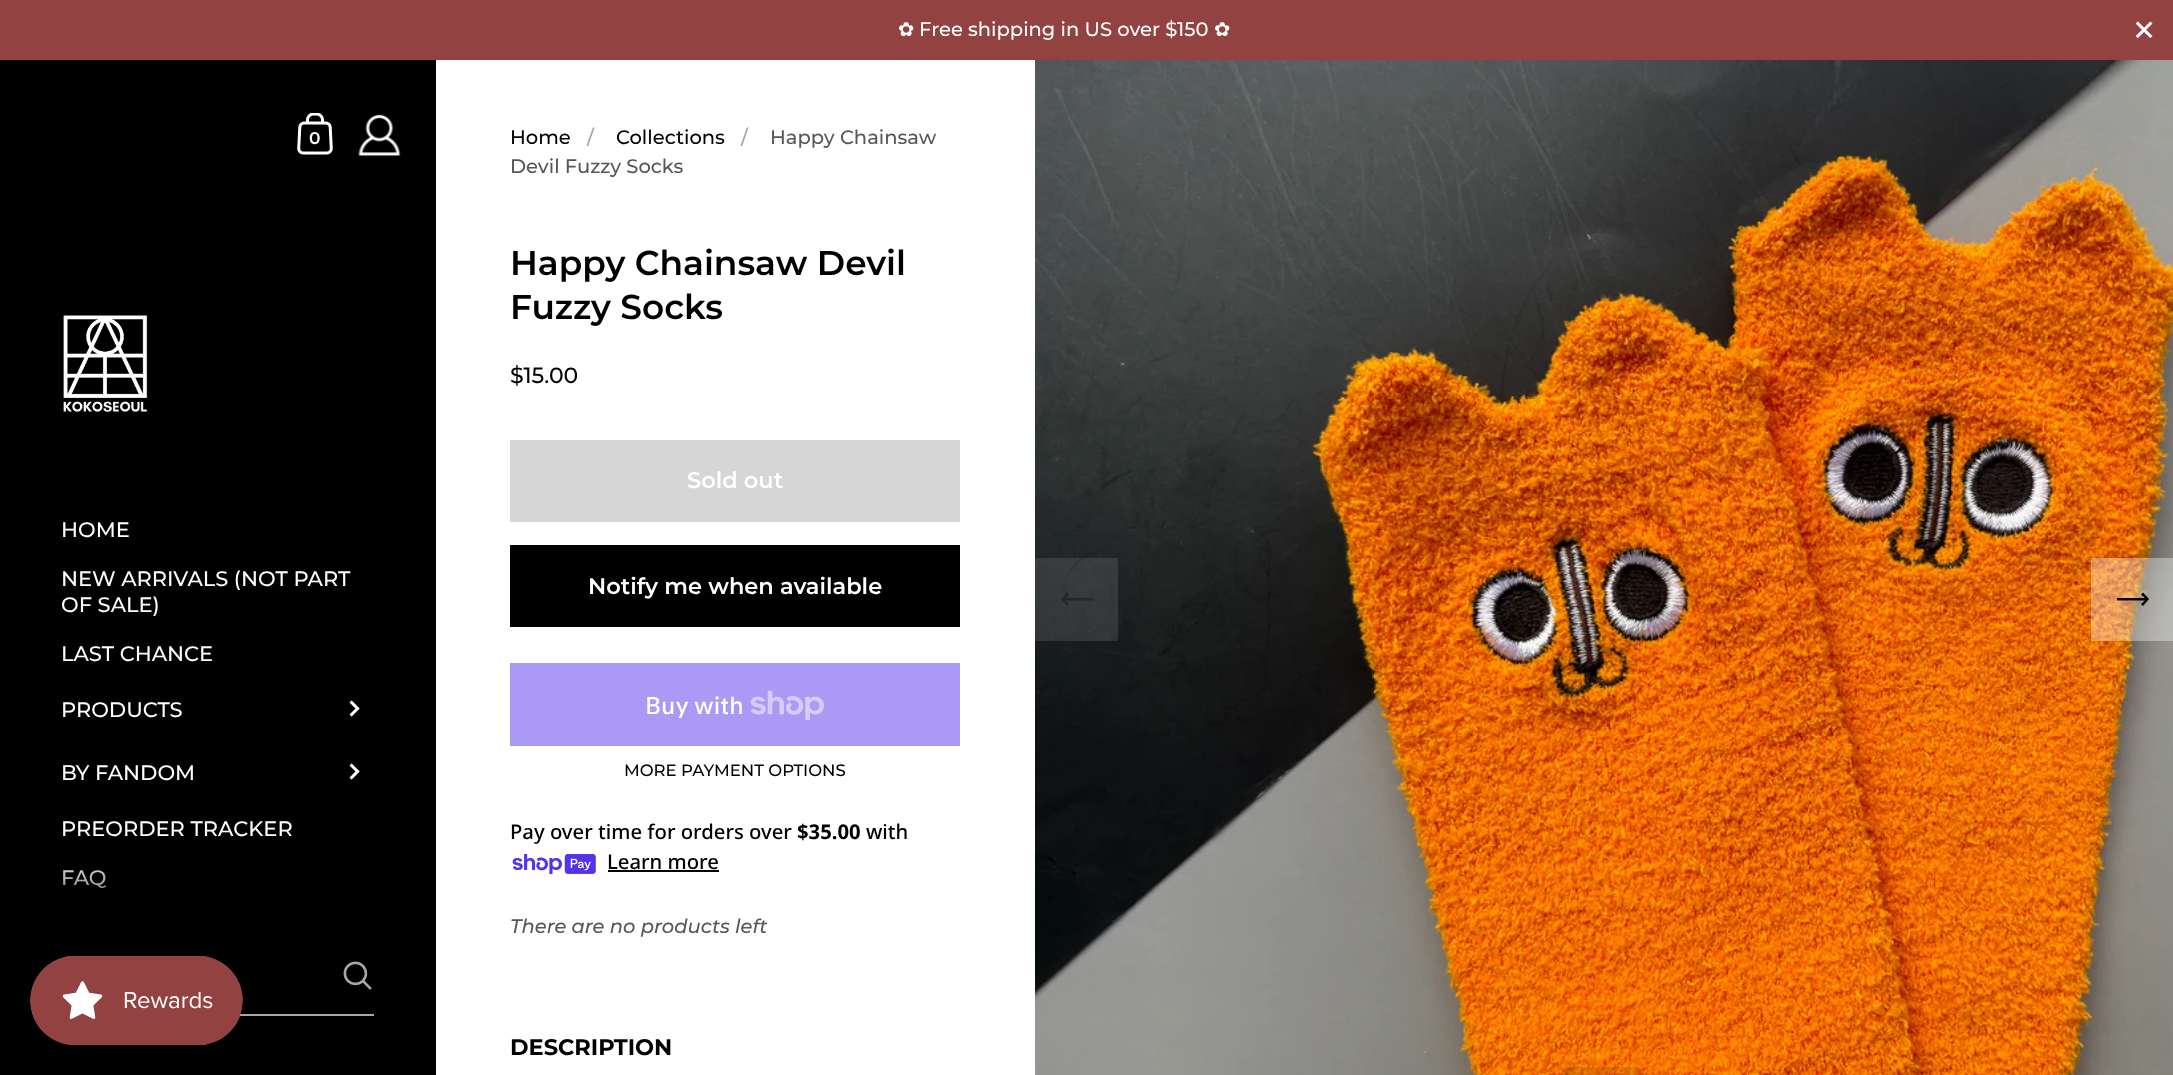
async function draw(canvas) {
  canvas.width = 2173
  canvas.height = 1075
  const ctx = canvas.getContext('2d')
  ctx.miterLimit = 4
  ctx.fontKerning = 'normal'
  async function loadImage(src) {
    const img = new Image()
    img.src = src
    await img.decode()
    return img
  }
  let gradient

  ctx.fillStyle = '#fff'
  ctx.fillRect(0, 0, 2173, 1075)
  ctx.fillStyle = '#934242'
  ctx.fillRect(0, 0, 2173, 60)
  ctx.font = '19.5px DejaVu Sans'
  ctx.fillStyle = '#fff'
  ctx.fillText('✿', 898, 36)
  ctx.font = '500 19.5px Montserrat'
  ctx.fillText('Free shipping in US over $150', 919, 36)
  ctx.font = '19.5px DejaVu Sans'
  ctx.fillText('✿', 1214, 36)
  ctx.drawImage(await loadImage('image0.png'), 2135, 21, 18, 18)
  ctx.fillStyle = '#000'
  ctx.fillRect(0, 60, 436, 1015)
  ctx.drawImage(await loadImage('image1.png'), 297, 113, 36, 42)
  ctx.font = '600 17px Montserrat'
  ctx.fillStyle = '#fff'
  ctx.fillText('0', 309, 144)
  ctx.drawImage(await loadImage('image2.png'), 358, 114, 43, 43)
  ctx.drawImage(await loadImage('image3.png'), 63, 315, 85, 97)
  ctx.font = '500 21px Montserrat'
  ctx.fillText('HOME', 61, 537)
  ctx.fillText('NEW ARRIVALS (NOT PART', 61, 586)
  ctx.fillText('OF SALE)', 61, 612)
  ctx.fillText('LAST CHANCE', 61, 661)
  ctx.fillText('PRODUCTS', 61, 717)
  ctx.drawImage(await loadImage('image4.png'), 349, 700, 11, 17)
  ctx.fillText('BY FANDOM', 61, 780)
  ctx.drawImage(await loadImage('image4.png'), 349, 763, 11, 17)
  ctx.fillText('PREORDER TRACKER', 61, 836)
  ctx.fillText('FAQ', 61, 885)
  gradient = ctx.createLinearGradient(218, 941, 218, 851)
  gradient.addColorStop(0, '#000')
  gradient.addColorStop(1, '#00000000')
  ctx.fillStyle = gradient
  ctx.fillRect(62, 870, 44, 19)
  ctx.drawImage(await loadImage('image5.png'), 343, 961, 29, 29)
  ctx.fillStyle = '#a8a7a7'
  ctx.fillRect(240, 1014, 134, 2)
  ctx.font = '500 19.5px Montserrat'
  ctx.fillStyle = '#000'
  ctx.fillText('Home', 510, 144)
  ctx.fillStyle = '#a3a3a3'
  ctx.fillText('/', 587, 144)
  ctx.fillStyle = '#000'
  ctx.fillText('Collections', 616, 144)
  ctx.fillStyle = '#a3a3a3'
  ctx.fillText('/', 741, 144)
  ctx.fillStyle = '#575757'
  ctx.fillText('Happy Chainsaw', 770, 144)
  ctx.fillText('Devil Fuzzy Socks', 510, 173)
  ctx.font = '600 34.4px Montserrat'
  ctx.fillStyle = '#000'
  ctx.fillText('Happy Chainsaw Devil', 510, 275)
  ctx.fillText('Fuzzy Socks', 510, 319)
  ctx.font = '500 22px Montserrat'
  ctx.fillText('$15.00', 510, 383)
  ctx.fillStyle = '#d6d6d6'
  ctx.fillRect(510, 440, 450, 82)
  ctx.font = '600 22.5px Montserrat'
  ctx.fillStyle = '#fff'
  ctx.fillText('Sold out', 687, 488)
  ctx.fillStyle = '#000'
  ctx.fillRect(510, 545, 450, 82)
  ctx.fillStyle = '#fff'
  ctx.fillText('Notify me when available', 588, 594)
  ctx.fillStyle = '#aa99f5'
  ctx.fillRect(510, 663, 450, 83)
  ctx.font = '500 24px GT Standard'
  ctx.fillStyle = '#fff'
  ctx.fillText('Buy with', 645, 714)
  ctx.drawImage(await loadImage('image6.png'), 750, 690, 74, 30)
  ctx.font = '500 16.5px Montserrat'
  ctx.fillStyle = '#000'
  ctx.fillText('MORE PAYMENT OPTIONS', 624, 776)
  ctx.font = '500 20.25px Noto Sans'
  ctx.fillText('Pay over time for orders over', 510, 839)
  ctx.font = 'bold 20.25px Noto Sans'
  ctx.fillText('$35.00', 797, 839)
  ctx.font = '500 20.25px Noto Sans'
  ctx.fillText('with', 866, 839)
  ctx.drawImage(await loadImage('image7.png'), 512, 854, 84, 21)
  ctx.fillText('Learn more', 607, 869)
  ctx.fillRect(608, 870, 111, 2)
  ctx.font = 'italic 500 19.5px Montserrat'
  ctx.fillStyle = '#575757'
  ctx.fillText('There are no products left', 510, 933)
  ctx.font = 'bold 22.5px Montserrat'
  ctx.fillStyle = '#000'
  ctx.fillText('DESCRIPTION', 510, 1055)
  ctx.drawImage(await loadImage('image8.png'), 1035, 60, 1138, 1015)
  ctx.fillStyle = '#ffffff1c'
  ctx.fillRect(1035, 558, 83, 83)
  ctx.fillStyle = '#0000004d'
  ctx.beginPath()
  ctx.moveTo(1067, 606)
  ctx.lineTo(1069, 604)
  ctx.lineTo(1065, 600.5)
  ctx.lineTo(1093, 600.5)
  ctx.lineTo(1093, 598)
  ctx.lineTo(1065, 598)
  ctx.lineTo(1069, 594.5)
  ctx.lineTo(1067, 592.5)
  ctx.lineTo(1061, 599)
  ctx.closePath()
  ctx.fill()
  ctx.fillStyle = '#ffffff5c'
  ctx.fillRect(2091, 558, 82, 83)
  ctx.fillStyle = '#000'
  ctx.beginPath()
  ctx.moveTo(2143, 592.5)
  ctx.lineTo(2141, 594.5)
  ctx.lineTo(2145, 598)
  ctx.lineTo(2117, 598)
  ctx.lineTo(2117, 600.5)
  ctx.lineTo(2145, 600.5)
  ctx.lineTo(2141, 604)
  ctx.lineTo(2143, 606)
  ctx.lineTo(2149, 599)
  ctx.closePath()
  ctx.fill()
  ctx.fillStyle = '#0000001a'
  ctx.beginPath()
  ctx.roundRect(1560, 1067, 87, 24, 15.5)
  ctx.fill()
  ctx.drawImage(await loadImage('image9.png'), 30, 955, 213, 91)
}

draw(document.querySelector('canvas'))
